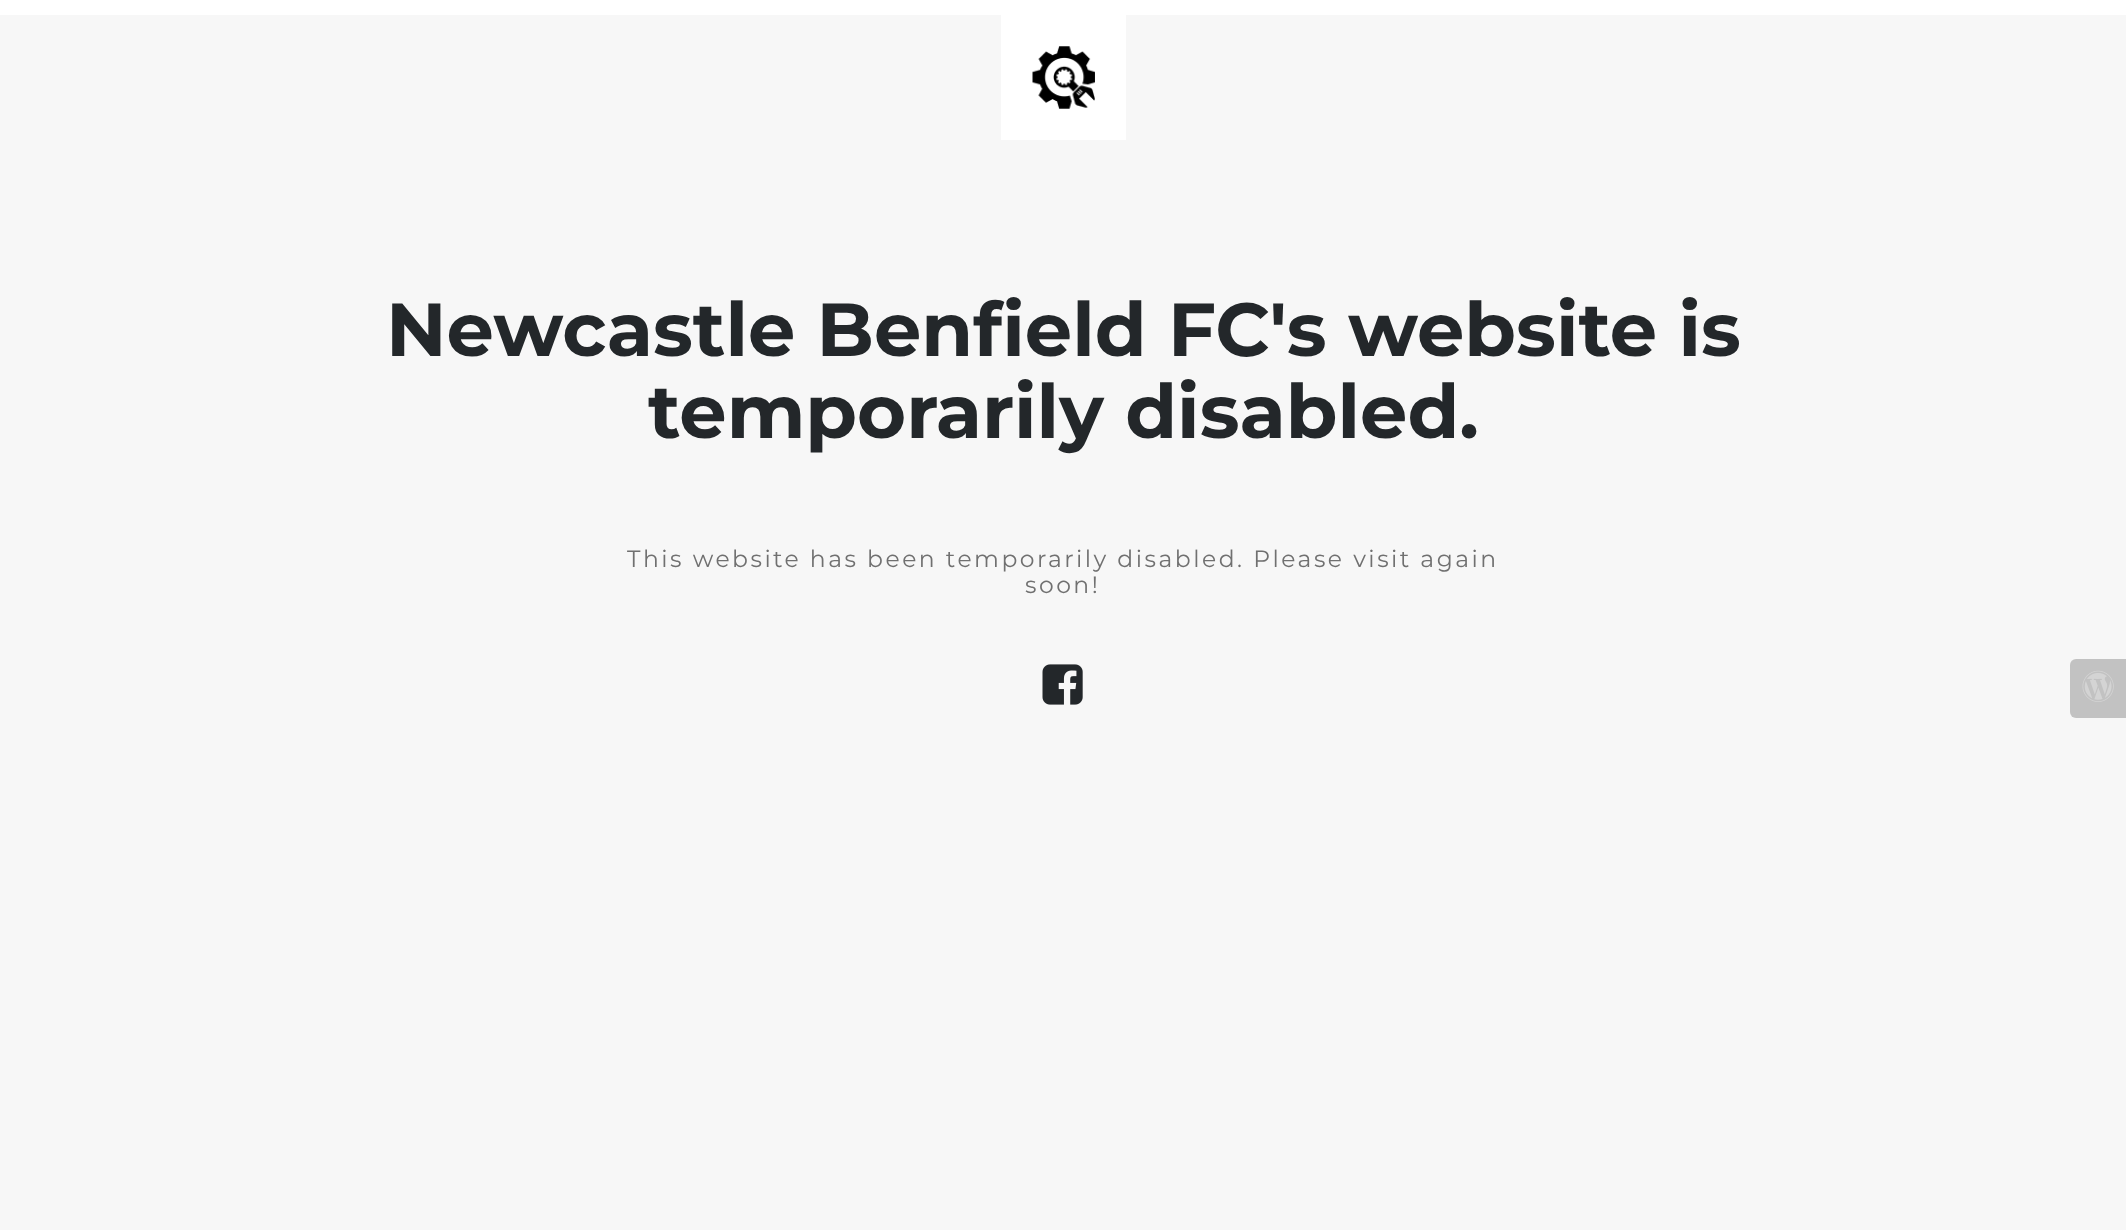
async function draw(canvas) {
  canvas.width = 2126
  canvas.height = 1230
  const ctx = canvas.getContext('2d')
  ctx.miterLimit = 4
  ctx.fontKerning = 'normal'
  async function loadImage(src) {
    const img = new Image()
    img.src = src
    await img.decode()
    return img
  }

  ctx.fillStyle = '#f7f7f7'
  ctx.fillRect(0, 0, 2126, 1230)
  ctx.fillStyle = '#fff'
  ctx.fillRect(0, 0, 2126, 15)
  ctx.fillRect(1001, 15, 125, 125)
  ctx.drawImage(await loadImage('image0.png'), 1032, 46, 63, 63)
  ctx.font = '100 75px Montserrat'
  ctx.fillStyle = '#23272a'
  ctx.fillText('Newcastle Benfield FC\'s website is', 386, 356)
  ctx.fillText('temporarily disabled.', 648, 438)
  ctx.letterSpacing = '2.5px'
  ctx.font = '100 23.45px "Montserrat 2"'
  ctx.fillStyle = '#707070'
  ctx.fillText('This website has been temporarily disabled. Please visit again', 627, 567)
  ctx.fillText('soon!', 1025, 593)
  ctx.drawImage(await loadImage('image1.png'), 1042, 664, 41, 41)
  ctx.fillStyle = '#c2c2c2'
  ctx.beginPath()
  ctx.roundRect(2070, 659, 56, 59, [6, 0, 0, 6])
  ctx.fill()
  ctx.drawImage(await loadImage('image2.png'), 2082, 670, 32, 32)
}

draw(document.querySelector('canvas'))
